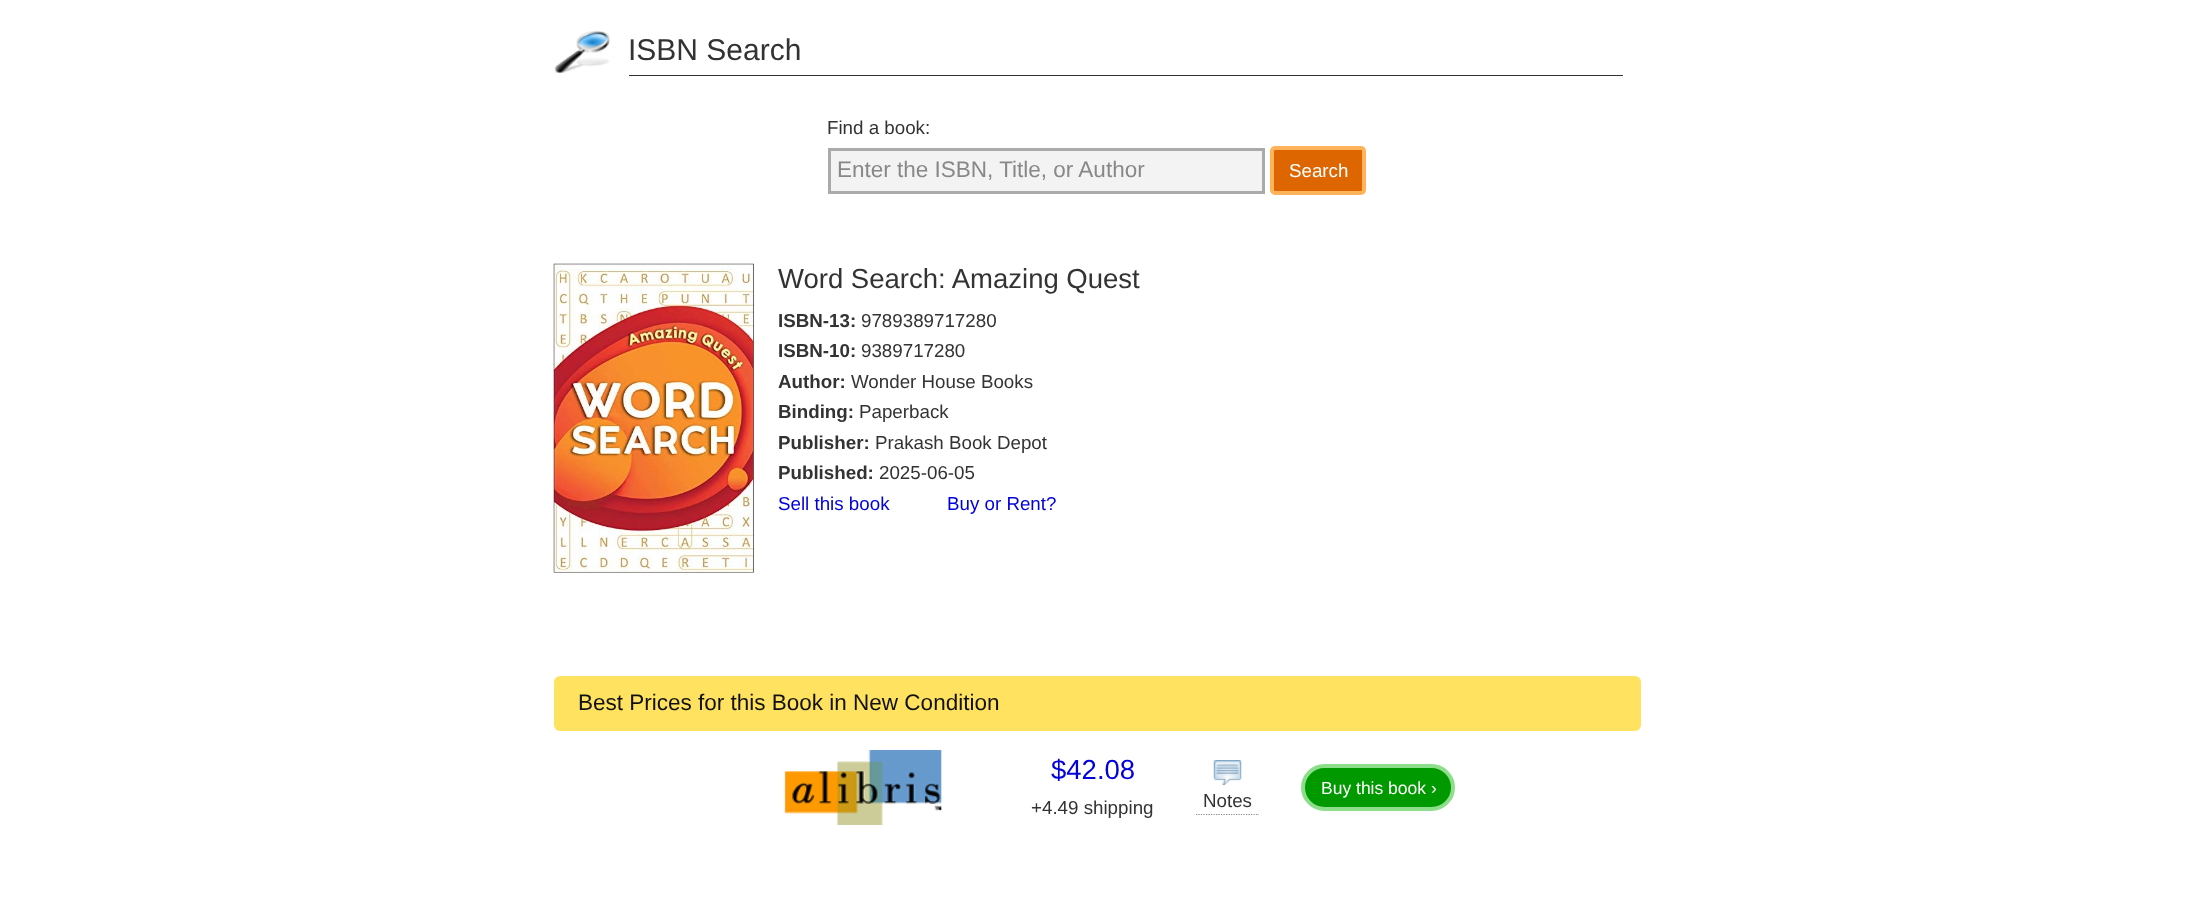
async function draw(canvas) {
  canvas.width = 2193
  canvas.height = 903
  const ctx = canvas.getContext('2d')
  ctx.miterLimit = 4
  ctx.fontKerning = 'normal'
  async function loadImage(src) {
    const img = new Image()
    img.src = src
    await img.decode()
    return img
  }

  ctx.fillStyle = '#fff'
  ctx.fillRect(0, 0, 2193, 903)
  ctx.drawImage(await loadImage('image0.png'), 554, 30, 57, 44)
  ctx.fillStyle = '#333'
  ctx.fillRect(629, 75, 994, 1)
  ctx.font = '30px Liberation Sans'
  ctx.fillText('ISBN Search', 628, 60)
  ctx.font = '18.75px Liberation Sans'
  ctx.fillText('Find a book:', 827, 134)
  ctx.fillStyle = '#f3f3f3'
  ctx.beginPath()
  ctx.rect(829.5, 149.5, 434, 43)
  ctx.fill()
  ctx.strokeStyle = '#aaa'
  ctx.lineWidth = 3
  ctx.stroke()
  ctx.font = '22.5px Liberation Sans'
  ctx.fillStyle = '#888'
  ctx.fillText('Enter the ISBN, Title, or Author', 837, 177)
  ctx.fillStyle = '#d60'
  ctx.beginPath()
  ctx.roundRect(1272, 148, 92, 45, 3)
  ctx.fill()
  ctx.strokeStyle = '#ffb45b'
  ctx.lineWidth = 4
  ctx.stroke()
  ctx.font = '18.75px Liberation Sans'
  ctx.fillStyle = '#fff'
  ctx.fillText('Search', 1289, 177)
  ctx.drawImage(await loadImage('image1.png'), 553, 263, 201, 310)
  ctx.font = '27.5px Liberation Sans'
  ctx.fillStyle = '#333'
  ctx.fillText('Word Search: Amazing Quest', 778, 288)
  ctx.font = 'bold 18.75px Liberation Sans'
  ctx.fillText('ISBN-13:', 778, 327)
  ctx.font = '18.75px Liberation Sans'
  ctx.fillText('9789389717280', 861, 327)
  ctx.font = 'bold 18.75px Liberation Sans'
  ctx.fillText('ISBN-10:', 778, 357)
  ctx.font = '18.75px Liberation Sans'
  ctx.fillText('9389717280', 861, 357)
  ctx.font = 'bold 18.75px Liberation Sans'
  ctx.fillText('Author:', 778, 388)
  ctx.font = '18.75px Liberation Sans'
  ctx.fillText('Wonder House Books', 851, 388)
  ctx.font = 'bold 18.75px Liberation Sans'
  ctx.fillText('Binding:', 778, 418)
  ctx.font = '18.75px Liberation Sans'
  ctx.fillText('Paperback', 859, 418)
  ctx.font = 'bold 18.75px Liberation Sans'
  ctx.fillText('Publisher:', 778, 449)
  ctx.font = '18.75px Liberation Sans'
  ctx.fillText('Prakash Book Depot', 875, 449)
  ctx.font = 'bold 18.75px Liberation Sans'
  ctx.fillText('Published:', 778, 479)
  ctx.font = '18.75px Liberation Sans'
  ctx.fillText('2025-06-05', 879, 479)
  ctx.fillStyle = '#00d'
  ctx.fillText('Sell this book', 778, 510)
  ctx.fillText('Buy or Rent?', 947, 510)
  ctx.fillStyle = '#ffe25f'
  ctx.beginPath()
  ctx.roundRect(554, 676, 1087, 55, 6)
  ctx.fill()
  ctx.font = '22.5px Liberation Sans'
  ctx.fillStyle = '#111'
  ctx.fillText('Best Prices for this Book in New Condition', 578, 710)
  ctx.drawImage(await loadImage('image2.png'), 784, 750, 158, 75)
  ctx.font = '27.5px Liberation Sans'
  ctx.fillStyle = '#00d'
  ctx.fillText('$42.08', 1051, 779)
  ctx.font = '18.75px Liberation Sans'
  ctx.fillStyle = '#333'
  ctx.fillText('+4.49 shipping', 1031, 814)
  ctx.fillStyle = '#090'
  ctx.beginPath()
  ctx.roundRect(1303, 766, 150, 43, 21.5)
  ctx.fill()
  ctx.strokeStyle = '#8dde8b'
  ctx.stroke()
  ctx.font = '17.5px Liberation Sans'
  ctx.fillStyle = '#fff'
  ctx.fillText('Buy this book ›', 1321, 794)
  ctx.drawImage(await loadImage('image3.png'), 1213, 760, 29, 25)
  ctx.beginPath()
  ctx.moveTo(1196, 814.5)
  ctx.lineTo(1259, 814.5)
  ctx.strokeStyle = '#888'
  ctx.lineWidth = 1.2
  ctx.setLineDash([1.25, 1.25])
  ctx.stroke()
  ctx.font = '18.75px Liberation Sans'
  ctx.fillStyle = '#333'
  ctx.fillText('Notes', 1203, 807)
}

draw(document.querySelector('canvas'))
